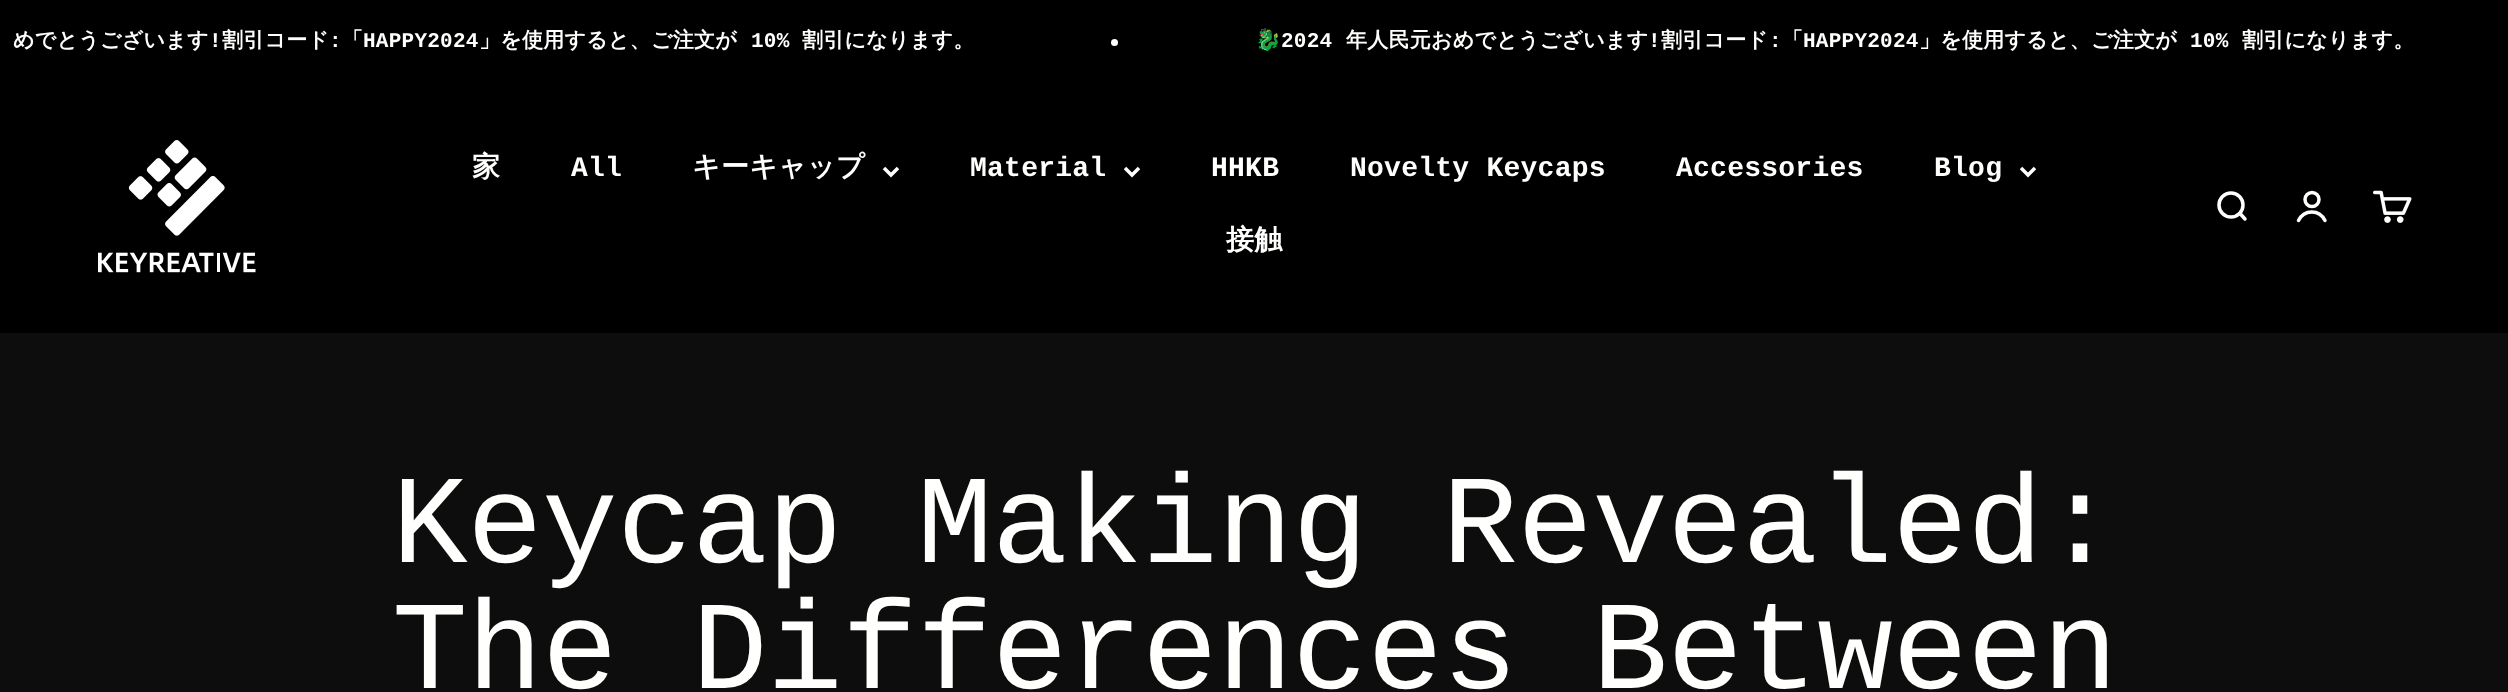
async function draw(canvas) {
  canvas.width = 2508
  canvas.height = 692
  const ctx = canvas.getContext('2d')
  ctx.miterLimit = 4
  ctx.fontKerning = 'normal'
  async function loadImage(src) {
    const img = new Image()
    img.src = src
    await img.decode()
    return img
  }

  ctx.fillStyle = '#000'
  ctx.fillRect(0, 0, 2508, 692)
  ctx.letterSpacing = '0.25px'
  ctx.font = 'bold 21px WenQuanYi Zen Hei'
  ctx.fillStyle = '#fffffe'
  ctx.fillText('めでとうございます', 13, 47)
  ctx.font = 'bold 21px Liberation Mono'
  ctx.fillText('!', 209, 47)
  ctx.font = 'bold 21px WenQuanYi Zen Hei'
  ctx.fillText('割引コード', 222, 47)
  ctx.font = 'bold 21px Liberation Mono'
  ctx.fillText(':', 329, 47)
  ctx.font = 'bold 21px WenQuanYi Zen Hei'
  ctx.fillText('「', 342, 47)
  ctx.font = 'bold 21px Liberation Mono'
  ctx.fillText('HAPPY2024', 363, 47)
  ctx.font = 'bold 21px WenQuanYi Zen Hei'
  ctx.fillText('」を使用すると、ご注文が', 479, 47)
  ctx.font = 'bold 21px Liberation Mono'
  ctx.fillText('10%', 751, 47)
  ctx.font = 'bold 21px WenQuanYi Zen Hei'
  ctx.fillText('割引になります。', 802, 47)
  ctx.beginPath()
  ctx.arc(1114.5, 42.5, 3.5, 0, 2 * Math.PI)
  ctx.fill()
  ctx.font = 'bold 21px Noto Color Emoji'
  ctx.fillText('🐉', 1255, 47)
  ctx.font = 'bold 21px Liberation Mono'
  ctx.fillText('2024', 1281, 47)
  ctx.font = 'bold 21px WenQuanYi Zen Hei'
  ctx.fillText('年人民元おめでとうございます', 1346, 47)
  ctx.font = 'bold 21px Liberation Mono'
  ctx.fillText('!', 1648, 47)
  ctx.font = 'bold 21px WenQuanYi Zen Hei'
  ctx.fillText('割引コード', 1661, 47)
  ctx.font = 'bold 21px Liberation Mono'
  ctx.fillText(':', 1769, 47)
  ctx.font = 'bold 21px WenQuanYi Zen Hei'
  ctx.fillText('「', 1782, 47)
  ctx.font = 'bold 21px Liberation Mono'
  ctx.fillText('HAPPY2024', 1803, 47)
  ctx.font = 'bold 21px WenQuanYi Zen Hei'
  ctx.fillText('」を使用すると、ご注文が', 1919, 47)
  ctx.font = 'bold 21px Liberation Mono'
  ctx.fillText('10%', 2190, 47)
  ctx.font = 'bold 21px WenQuanYi Zen Hei'
  ctx.fillText('割引になります。', 2242, 47)
  ctx.drawImage(await loadImage('image0.png'), 98, 140, 158, 133)
  ctx.font = 'bold 28px WenQuanYi Zen Hei'
  ctx.fillText('家', 472, 176)
  ctx.font = 'bold 28px Liberation Mono'
  ctx.fillText('All', 571, 176)
  ctx.font = 'bold 28px WenQuanYi Zen Hei'
  ctx.fillText('キーキャップ', 692, 176)
  ctx.beginPath()
  ctx.moveTo(884, 168)
  ctx.lineTo(891, 175)
  ctx.lineTo(898, 168)
  ctx.strokeStyle = '#fffffe'
  ctx.lineWidth = 3.5
  ctx.stroke()
  ctx.font = 'bold 28px Liberation Mono'
  ctx.fillText('Material', 970, 176)
  ctx.beginPath()
  ctx.moveTo(1125, 168)
  ctx.lineTo(1132, 175)
  ctx.lineTo(1139, 168)
  ctx.stroke()
  ctx.fillText('HHKB', 1211, 176)
  ctx.fillText('Novelty Keycaps', 1350, 176)
  ctx.fillText('Accessories', 1676, 176)
  ctx.fillText('Blog', 1934, 176)
  ctx.beginPath()
  ctx.moveTo(2021, 168)
  ctx.lineTo(2028, 175)
  ctx.lineTo(2035, 168)
  ctx.stroke()
  ctx.font = 'bold 28px WenQuanYi Zen Hei'
  ctx.fillText('接触', 1226, 249)
  ctx.beginPath()
  ctx.arc(2231, 205, 12, 0, 2 * Math.PI)
  ctx.stroke()
  ctx.beginPath()
  ctx.moveTo(2240, 213.5)
  ctx.lineTo(2245, 219)
  ctx.lineCap = 'round'
  ctx.lineJoin = 'round'
  ctx.stroke()
  ctx.beginPath()
  ctx.arc(2312, 199.5, 7, 0, 2 * Math.PI)
  ctx.stroke()
  ctx.beginPath()
  ctx.moveTo(2298.5, 220.5)
  ctx.bezierCurveTo(2304, 209, 2319.5, 209, 2325, 220.5)
  ctx.lineJoin = 'miter'
  ctx.stroke()
  ctx.drawImage(await loadImage('image1.png'), 2373, 190, 39, 33)
  ctx.fillStyle = '#0d0d0d'
  ctx.fillRect(0, 333, 2508, 359)
  ctx.letterSpacing = '-0.6px'
  ctx.font = '126px Liberation Mono'
  ctx.fillStyle = '#fffffe'
  ctx.fillText('Keycap Making Revealed:', 392, 562)
  ctx.fillText('The Differences Between', 392, 688)
}

draw(document.querySelector('canvas'))
